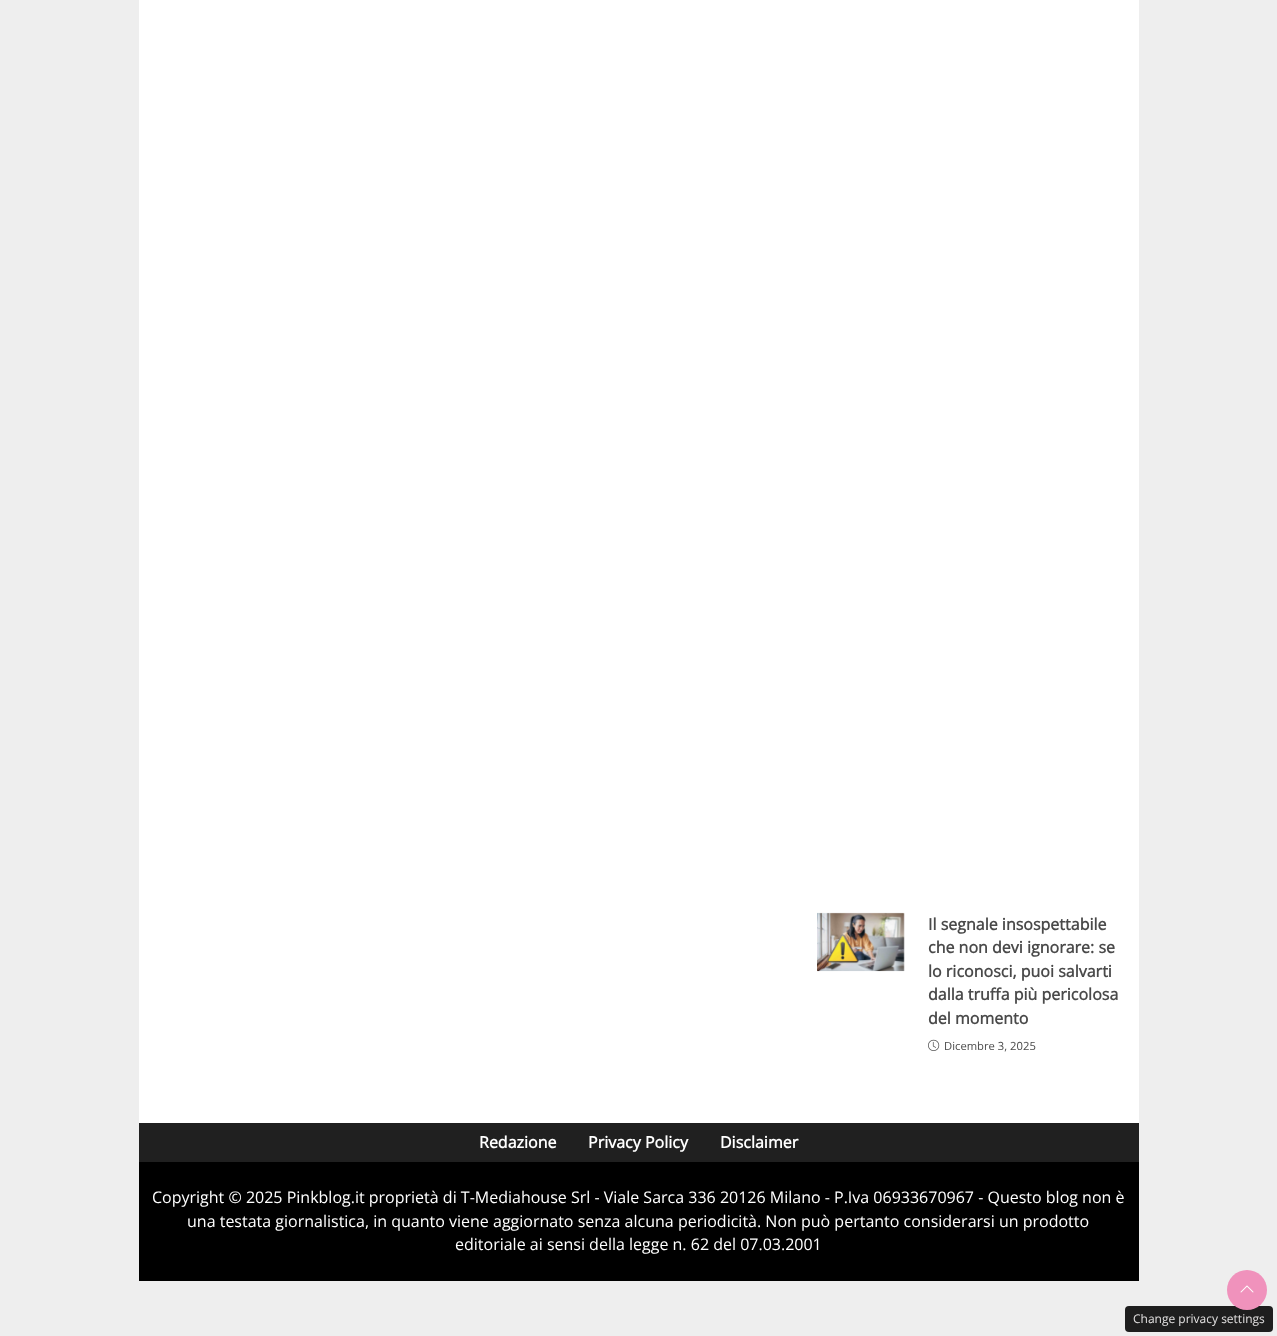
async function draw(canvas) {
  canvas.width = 1277
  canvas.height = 1336
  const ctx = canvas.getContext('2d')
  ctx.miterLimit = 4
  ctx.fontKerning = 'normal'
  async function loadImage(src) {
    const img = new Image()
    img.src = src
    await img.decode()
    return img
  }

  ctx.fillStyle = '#eee'
  ctx.fillRect(0, 0, 1277, 1336)
  ctx.fillStyle = '#fff'
  ctx.fillRect(139, 0, 1000, 1123)
  ctx.drawImage(await loadImage('image0.png'), 817, 912, 88, 60)
  ctx.font = 'bold 16px Open Sans'
  ctx.fillStyle = '#4a4a4a'
  ctx.fillText('Il segnale insospettabile', 928, 930)
  ctx.fillText('che non devi ignorare: se', 928, 953)
  ctx.fillText('lo riconosci, puoi salvarti', 928, 977)
  ctx.fillText('dalla truffa più pericolosa', 928, 1000)
  ctx.fillText('del momento', 928, 1024)
  ctx.drawImage(await loadImage('image1.png'), 928, 1039, 12, 12)
  ctx.font = '11.25px Open Sans'
  ctx.fillText('Dicembre 3, 2025', 944, 1050)
  ctx.fillStyle = '#202020'
  ctx.fillRect(139, 1123, 1000, 39)
  ctx.font = 'bold 16px Open Sans'
  ctx.fillStyle = '#fff'
  ctx.fillText('Redazione', 479, 1148)
  ctx.fillText('Privacy Policy', 588, 1148)
  ctx.fillText('Disclaimer', 720, 1148)
  ctx.fillStyle = '#000'
  ctx.fillRect(139, 1162, 1000, 119)
  ctx.font = '16px Open Sans'
  ctx.fillStyle = '#fff'
  ctx.fillText('Copyright © 2025 Pinkblog.it proprietà di T-Mediahouse Srl - Viale Sarca 336 20126 Milano - P.Iva 06933670967 - Questo blog non è', 152, 1203)
  ctx.fillText('una testata giornalistica, in quanto viene aggiornato senza alcuna periodicità. Non può pertanto considerarsi un prodotto', 187, 1227)
  ctx.fillText('editoriale ai sensi della legge n. 62 del 07.03.2001', 455, 1250)
  ctx.fillStyle = '#1e1e1e'
  ctx.beginPath()
  ctx.roundRect(1125, 1306, 148, 26, 4)
  ctx.fill()
  ctx.fillStyle = '#f092bc'
  ctx.beginPath()
  ctx.arc(1247, 1290, 20, 0, 2 * Math.PI)
  ctx.fill()
  ctx.drawImage(await loadImage('image2.png'), 1240, 1285, 14, 8)
  ctx.font = '12px Open Sans'
  ctx.fillStyle = '#e3e1e1'
  ctx.fillText('Change privacy settings', 1133, 1323)
}

draw(document.querySelector('canvas'))
